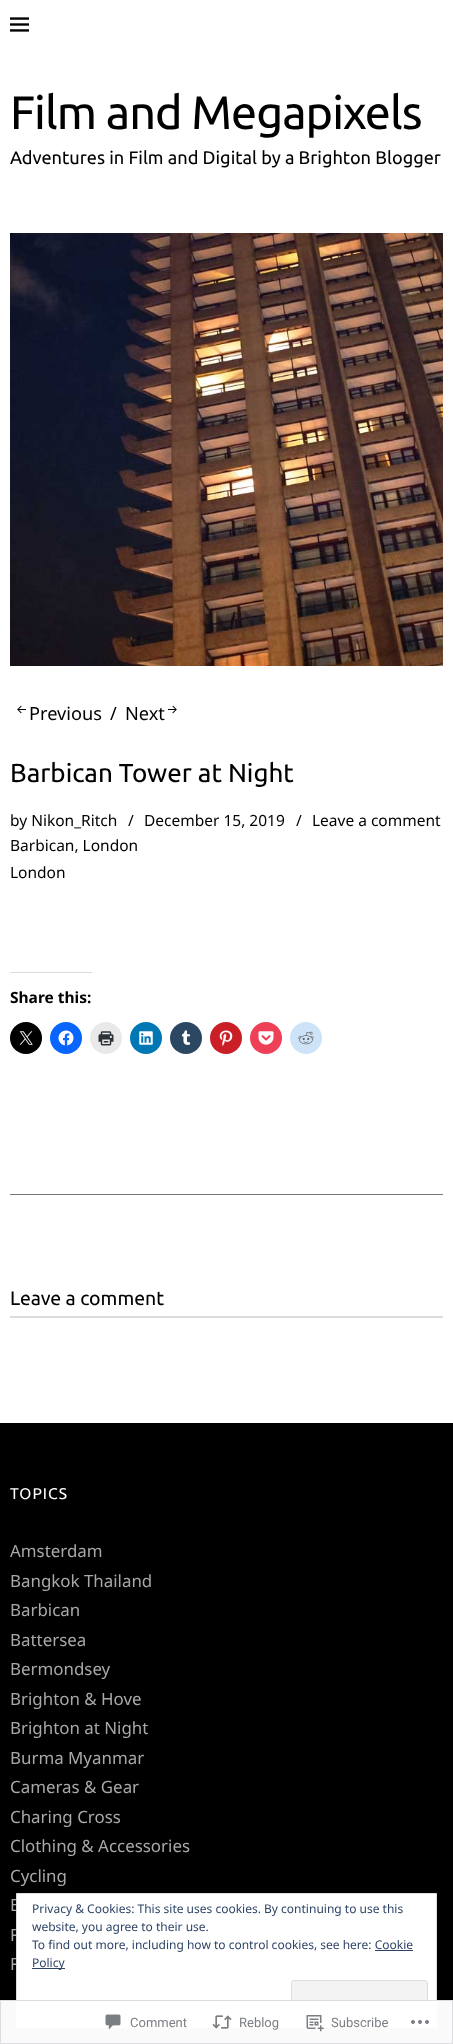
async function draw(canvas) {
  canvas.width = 453
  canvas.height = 2044
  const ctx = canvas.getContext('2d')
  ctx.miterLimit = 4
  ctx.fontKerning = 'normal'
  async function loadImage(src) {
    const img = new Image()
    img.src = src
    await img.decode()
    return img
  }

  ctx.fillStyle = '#fff'
  ctx.fillRect(0, 0, 453, 2044)
  ctx.drawImage(await loadImage('image0.png'), 10, 17, 19, 15)
  ctx.letterSpacing = '-1px'
  ctx.font = '46.75px Ubuntu'
  ctx.fillStyle = '#000'
  ctx.fillText('Film and Megapixels', 10, 129)
  ctx.letterSpacing = '0px'
  ctx.font = '18.2px Ubuntu'
  ctx.fillText('Adventures in Film and Digital by a Brighton Blogger', 10, 164)
  ctx.drawImage(await loadImage('image1.png'), 10, 233, 433, 433)
  ctx.drawImage(await loadImage('image2.png'), 17, 705, 9, 9)
  ctx.font = '18.2px Noto Sans'
  ctx.fillText('Previous', 29, 720)
  ctx.fillText('/', 110, 720)
  ctx.fillText('Next', 125, 720)
  ctx.drawImage(await loadImage('image3.png'), 168, 705, 9, 9)
  ctx.font = '26px Ubuntu'
  ctx.fillText('Barbican Tower at Night', 10, 782)
  ctx.font = '15.5px Noto Sans'
  ctx.fillText('by Nikon_Ritch', 10, 826)
  ctx.fillText('/', 128, 826)
  ctx.fillText('December 15, 2019', 144, 826)
  ctx.fillText('/', 296, 826)
  ctx.fillText('Leave a comment', 312, 826)
  ctx.fillText('Barbican, London', 10, 851)
  ctx.fillText('London', 10, 878)
  ctx.fillStyle = '#dcdcde'
  ctx.fillRect(10, 972, 82, 1)
  ctx.font = 'bold 15.5px Noto Sans'
  ctx.fillStyle = '#000'
  ctx.fillText('Share this:', 10, 1003)
  ctx.beginPath()
  ctx.arc(26, 1038, 16, 0, 2 * Math.PI)
  ctx.fill()
  ctx.drawImage(await loadImage('image4.png'), 19, 1031, 14, 14)
  ctx.fillStyle = '#0866ff'
  ctx.beginPath()
  ctx.arc(66, 1038, 16, 0, 2 * Math.PI)
  ctx.fill()
  ctx.drawImage(await loadImage('image5.png'), 58, 1030, 16, 16)
  ctx.fillStyle = '#e9e9e9'
  ctx.beginPath()
  ctx.arc(106, 1038, 16, 0, 2 * Math.PI)
  ctx.fill()
  ctx.drawImage(await loadImage('image6.png'), 98, 1031, 16, 15)
  ctx.fillStyle = '#0077b5'
  ctx.beginPath()
  ctx.arc(146, 1038, 16, 0, 2 * Math.PI)
  ctx.fill()
  ctx.drawImage(await loadImage('image7.png'), 139, 1031, 14, 14)
  ctx.fillStyle = '#2c4762'
  ctx.beginPath()
  ctx.arc(186, 1038, 16, 0, 2 * Math.PI)
  ctx.fill()
  ctx.drawImage(await loadImage('image8.png'), 181, 1030, 10, 15)
  ctx.fillStyle = '#ca1f27'
  ctx.beginPath()
  ctx.arc(226, 1038, 16, 0, 2 * Math.PI)
  ctx.fill()
  ctx.drawImage(await loadImage('image9.png'), 219, 1030, 14, 16)
  ctx.fillStyle = '#ee4056'
  ctx.beginPath()
  ctx.arc(266, 1038, 16, 0, 2 * Math.PI)
  ctx.fill()
  ctx.drawImage(await loadImage('image10.png'), 258, 1031, 16, 14)
  ctx.fillStyle = '#cee3f8'
  ctx.beginPath()
  ctx.arc(306, 1038, 16, 0, 2 * Math.PI)
  ctx.fill()
  ctx.drawImage(await loadImage('image11.png'), 298, 1031, 16, 14)
  ctx.fillStyle = '#777'
  ctx.fillRect(10, 1194, 433, 1)
  ctx.font = '19.5px Ubuntu'
  ctx.fillStyle = '#000'
  ctx.fillText('Leave a comment', 10, 1305)
  ctx.fillStyle = '#dcdcde'
  ctx.fillRect(10, 1316, 433, 2)
  ctx.fillStyle = '#000'
  ctx.fillRect(0, 1423, 453, 621)
  ctx.letterSpacing = '1px'
  ctx.font = '15.5px Ubuntu'
  ctx.fillStyle = '#fff'
  ctx.fillText('TOPICS', 10, 1499)
  ctx.letterSpacing = '0px'
  ctx.font = '16.9px Noto Sans'
  ctx.fillStyle = '#a8a8a8'
  ctx.fillText('Amsterdam', 10, 1557)
  ctx.fillText('Bangkok Thailand', 10, 1587)
  ctx.fillText('Barbican', 10, 1616)
  ctx.fillText('Battersea', 10, 1646)
  ctx.fillText('Bermondsey', 10, 1675)
  ctx.fillText('Brighton & Hove', 10, 1705)
  ctx.fillText('Brighton at Night', 10, 1734)
  ctx.fillText('Burma Myanmar', 10, 1764)
  ctx.fillText('Cameras & Gear', 10, 1793)
  ctx.fillText('Charing Cross', 10, 1823)
  ctx.fillText('Clothing & Accessories', 10, 1852)
  ctx.fillText('Cycling', 10, 1882)
  ctx.fillText('E', 10, 1911)
  ctx.fillText('F', 10, 1941)
  ctx.fillText('F', 10, 1970)
  ctx.fillStyle = '#fff'
  ctx.beginPath()
  ctx.rect(16.5, 1893.5, 420, 134)
  ctx.fill()
  ctx.strokeStyle = '#dedede'
  ctx.stroke()
  ctx.font = '12px Noto Sans'
  ctx.fillStyle = '#2e4467'
  ctx.fillText('Privacy & Cookies: This site uses cookies. By continuing to use this', 32, 1913)
  ctx.fillText('website, you agree to their use.', 32, 1931)
  ctx.fillText('To find out more, including how to control cookies, see here: Cookie', 32, 1949)
  ctx.fillRect(32, 1968, 33, 1)
  ctx.fillText('Policy', 32, 1967)
  ctx.fillRect(375, 1950, 38, 1)
  ctx.fillStyle = '#f3f3f3'
  ctx.beginPath()
  ctx.roundRect(291.5, 1980.5, 136, 38, 2.5)
  ctx.fill()
  ctx.stroke()
  ctx.fillStyle = '#fffffffa'
  ctx.fillRect(0, 2000, 453, 44)
  ctx.strokeStyle = '#dcdcdefa'
  ctx.strokeRect(0.5, 2000.5, 452, 43)
  ctx.drawImage(await loadImage('image12.png'), 105, 2014, 16, 16)
  ctx.font = '13px Roboto'
  ctx.fillStyle = '#7b7f84'
  ctx.fillText('Comment', 130, 2027)
  ctx.drawImage(await loadImage('image13.png'), 212, 2015, 20, 14)
  ctx.fillText('Reblog', 239, 2027)
  ctx.drawImage(await loadImage('image14.png'), 306, 2015, 18, 17)
  ctx.fillText('Subscribe', 331, 2027)
  ctx.drawImage(await loadImage('image15.png'), 411, 2020, 18, 4)
}

draw(document.querySelector('canvas'))
